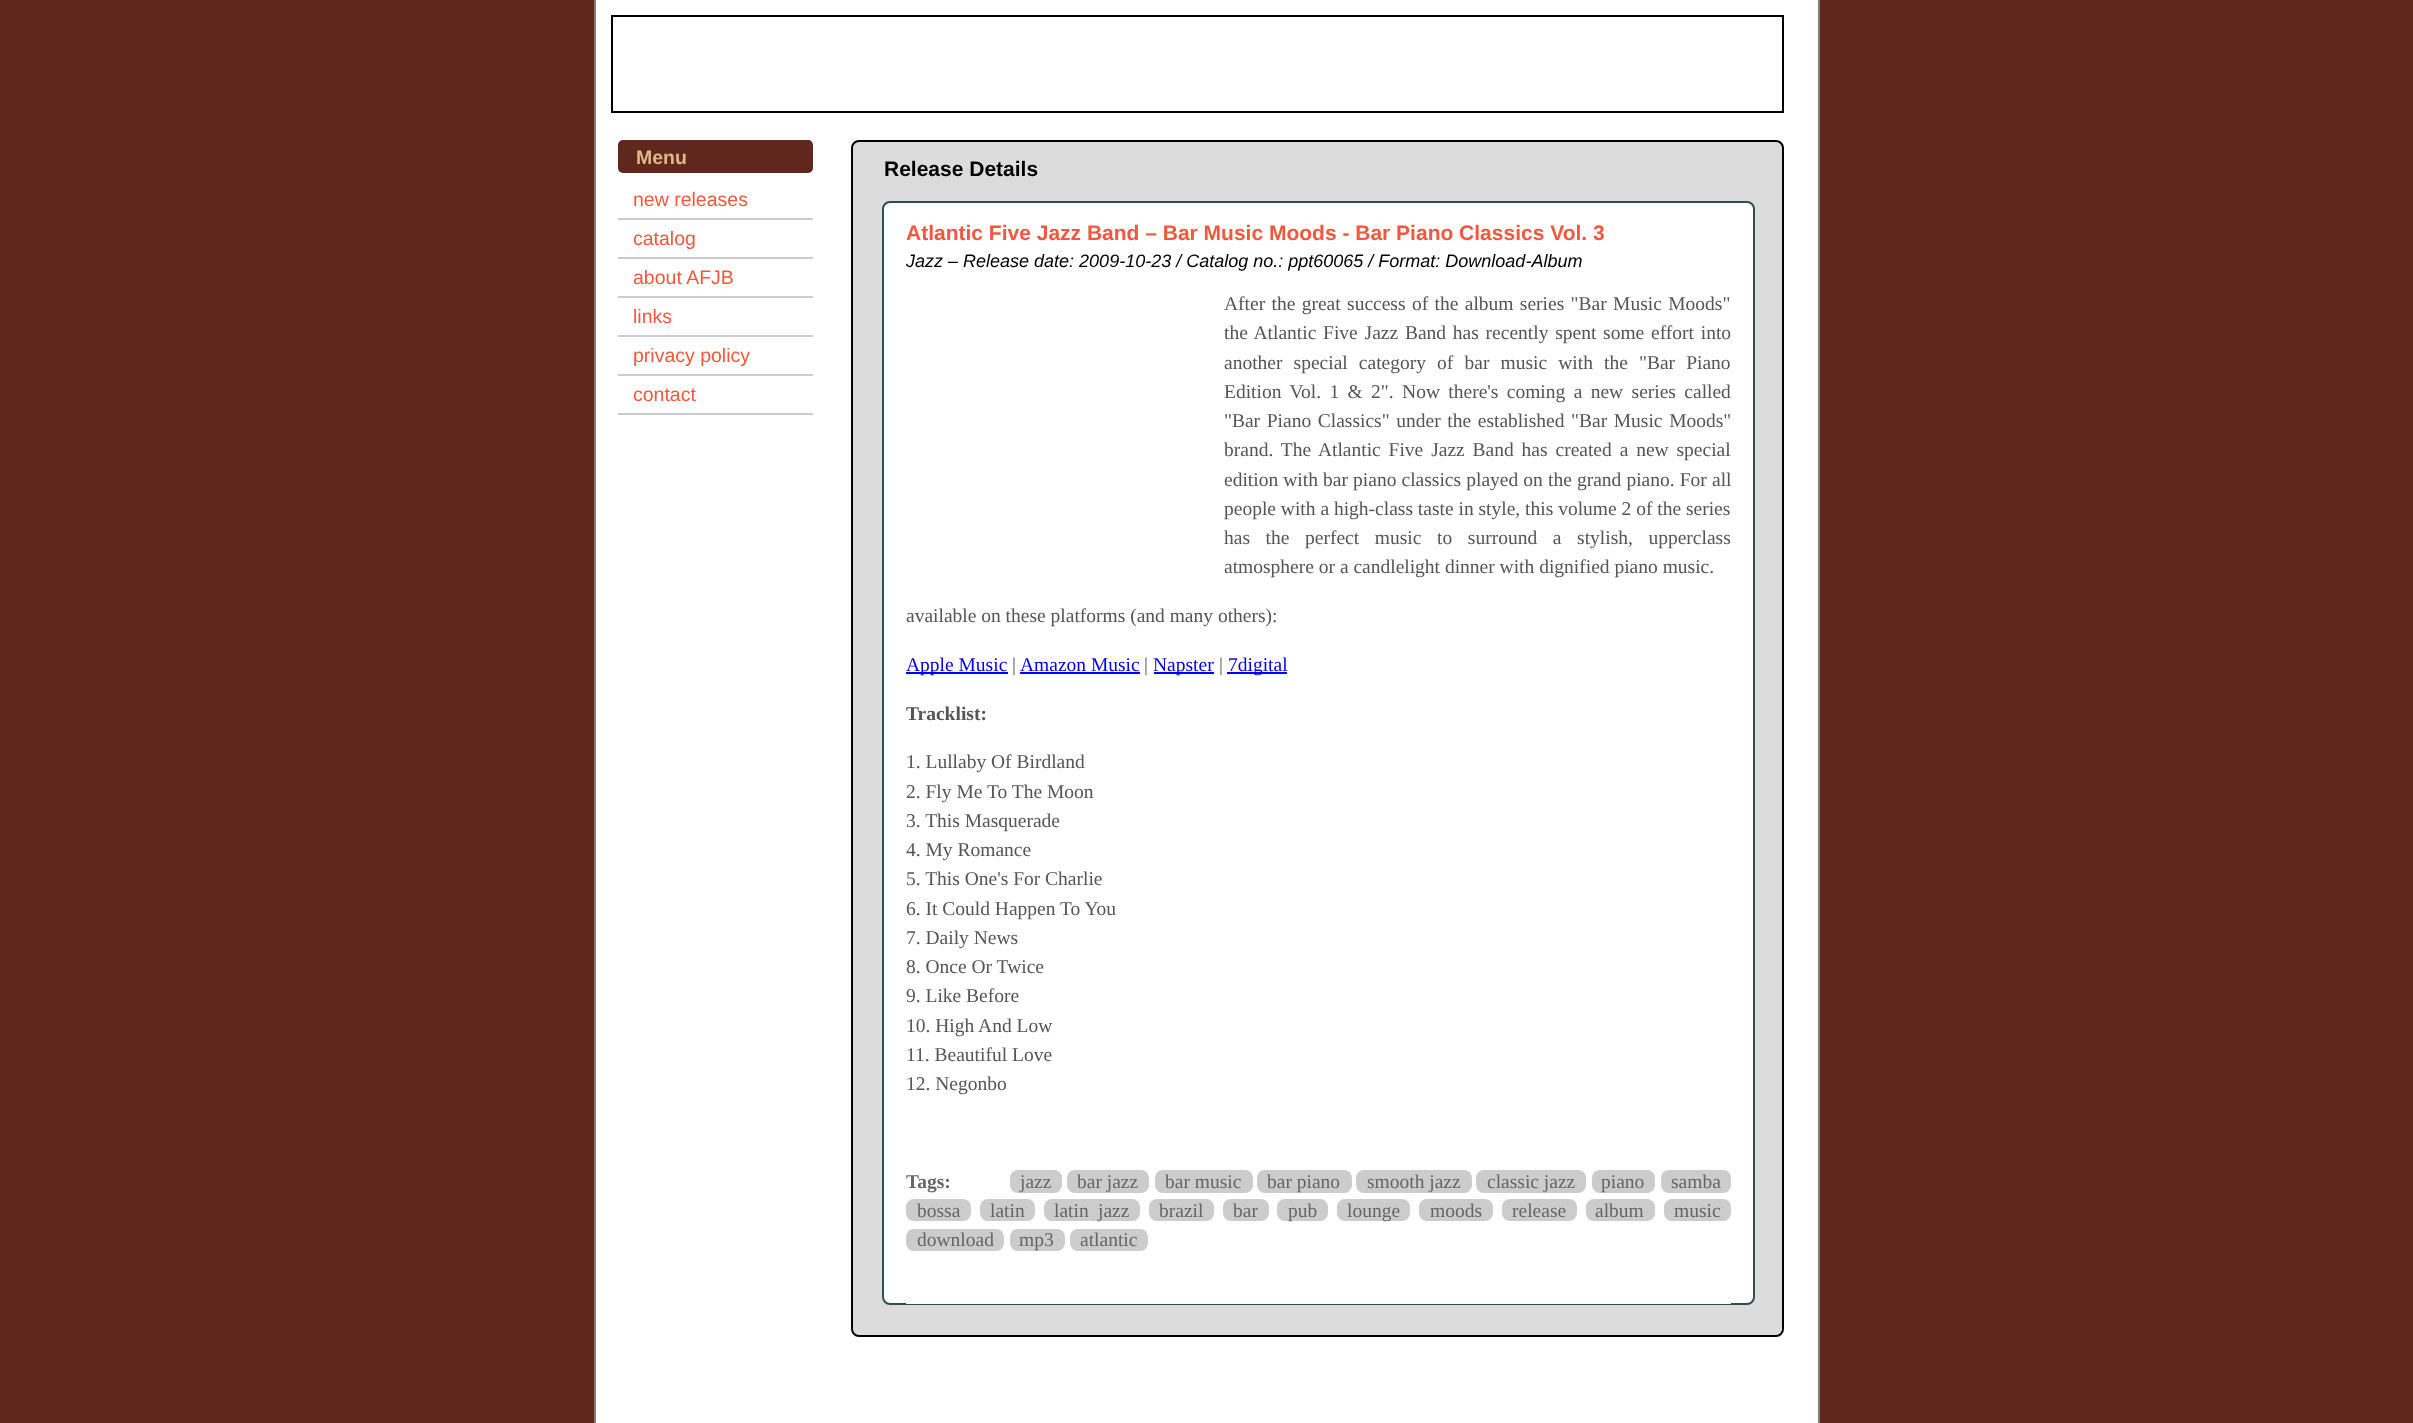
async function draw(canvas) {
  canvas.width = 2413
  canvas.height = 1423
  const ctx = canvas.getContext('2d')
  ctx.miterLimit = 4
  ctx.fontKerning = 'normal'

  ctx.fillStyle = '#60281d'
  ctx.fillRect(0, 0, 2413, 1423)
  ctx.fillStyle = '#fff'
  ctx.fillRect(596, 0, 1222, 1423)
  ctx.fillStyle = '#808080'
  ctx.fillRect(1818, 0, 2, 1423)
  ctx.fillRect(594, 0, 2, 1423)
  ctx.strokeStyle = '#000'
  ctx.lineWidth = 2
  ctx.strokeRect(612, 16, 1171, 96)
  ctx.fillStyle = '#60281d'
  ctx.beginPath()
  ctx.roundRect(618, 140, 195, 33, 5)
  ctx.fill()
  ctx.font = 'bold 19.5px Liberation Sans'
  ctx.fillStyle = '#deb887'
  ctx.fillText('Menu', 636, 164)
  ctx.fillStyle = '#ccc'
  ctx.fillRect(618, 218, 195, 2)
  ctx.font = '19.5px Liberation Sans'
  ctx.fillStyle = '#f2583e'
  ctx.fillText('new releases', 633, 206)
  ctx.fillStyle = '#ccc'
  ctx.fillRect(618, 257, 195, 2)
  ctx.fillStyle = '#f2583e'
  ctx.fillText('catalog', 633, 245)
  ctx.fillStyle = '#ccc'
  ctx.fillRect(618, 296, 195, 2)
  ctx.fillStyle = '#f2583e'
  ctx.fillText('about AFJB', 633, 284)
  ctx.fillStyle = '#ccc'
  ctx.fillRect(618, 335, 195, 2)
  ctx.fillStyle = '#f2583e'
  ctx.fillText('links', 633, 323)
  ctx.fillStyle = '#ccc'
  ctx.fillRect(618, 374, 195, 2)
  ctx.fillStyle = '#f2583e'
  ctx.fillText('privacy policy', 633, 362)
  ctx.fillStyle = '#ccc'
  ctx.fillRect(618, 413, 195, 2)
  ctx.fillStyle = '#f2583e'
  ctx.fillText('contact', 633, 401)
  ctx.fillStyle = '#dcdcdc'
  ctx.beginPath()
  ctx.roundRect(852, 141, 931, 1195, 7)
  ctx.fill()
  ctx.stroke()
  ctx.font = 'bold 21px Liberation Sans'
  ctx.fillStyle = '#000'
  ctx.fillText('Release Details', 884, 176)
  ctx.fillStyle = '#fff'
  ctx.beginPath()
  ctx.roundRect(883, 202, 871, 1102, 7)
  ctx.fill()
  ctx.strokeStyle = '#2f4f4f'
  ctx.stroke()
  ctx.fillStyle = '#f2583e'
  ctx.fillText('Atlantic Five Jazz Band – Bar Music Moods - Bar Piano Classics Vol. 3', 906, 240)
  ctx.font = 'italic 18px Liberation Sans'
  ctx.fillStyle = '#000'
  ctx.fillText('Jazz – Release date: 2009-10-23 / Catalog no.: ppt60065 / Format: Download-Album', 906, 267)
  ctx.fillStyle = '#fff'
  ctx.fillRect(906, 1303, 825, 1)
  ctx.wordSpacing = '1.5px'
  ctx.font = '19.5px Liberation Serif'
  ctx.fillStyle = '#555'
  ctx.fillText('After the great success of the album series "Bar Music Moods"', 1224, 310)
  ctx.wordSpacing = '1.9px'
  ctx.fillText('the Atlantic Five Jazz Band has recently spent some effort into', 1224, 339)
  ctx.wordSpacing = '6.25px'
  ctx.fillText('another special category of bar music with the "Bar Piano', 1224, 369)
  ctx.wordSpacing = '3.5px'
  ctx.fillText('Edition Vol. 1 & 2". Now there\'s coming a new series called', 1224, 398)
  ctx.wordSpacing = '1.75px'
  ctx.fillText('"Bar Piano Classics" under the established "Bar Music Moods"', 1224, 427)
  ctx.wordSpacing = '3px'
  ctx.fillText('brand. The Atlantic Five Jazz Band has created a new special', 1224, 456)
  ctx.wordSpacing = '0.25px'
  ctx.fillText('edition with bar piano classics played on the grand piano. For all', 1224, 486)
  ctx.wordSpacing = '0px'
  ctx.fillText('people with a high-class taste in style, this volume 2 of the series', 1224, 515)
  ctx.wordSpacing = '10.75px'
  ctx.fillText('has the perfect music to surround a stylish, upperclass', 1224, 544)
  ctx.wordSpacing = '0px'
  ctx.fillText('atmosphere or a candlelight dinner with dignified piano music.', 1224, 573)
  ctx.fillText('available on these platforms (and many others):', 906, 622)
  ctx.fillStyle = '#00e'
  ctx.fillRect(906, 672, 102, 2)
  ctx.fillText('Apple Music', 906, 671)
  ctx.fillStyle = '#555'
  ctx.fillText('|', 1012, 671)
  ctx.fillStyle = '#00e'
  ctx.fillText('Amazon Music', 1020, 671)
  ctx.fillRect(1020, 672, 120, 2)
  ctx.fillStyle = '#555'
  ctx.fillText('|', 1144, 671)
  ctx.fillStyle = '#00e'
  ctx.fillRect(1154, 672, 60, 2)
  ctx.fillText('Napster', 1153, 671)
  ctx.fillStyle = '#555'
  ctx.fillText('|', 1219, 671)
  ctx.fillStyle = '#00e'
  ctx.fillRect(1227, 672, 60, 2)
  ctx.fillText('7digital', 1228, 671)
  ctx.font = 'bold 19.5px Liberation Serif'
  ctx.fillStyle = '#555'
  ctx.fillText('Tracklist:', 906, 720)
  ctx.font = '19.5px Liberation Serif'
  ctx.fillText('1. Lullaby Of Birdland', 906, 768)
  ctx.fillText('2. Fly Me To The Moon', 906, 798)
  ctx.fillText('3. This Masquerade', 906, 827)
  ctx.fillText('4. My Romance', 906, 856)
  ctx.fillText('5. This One\'s For Charlie', 906, 885)
  ctx.fillText('6. It Could Happen To You', 906, 915)
  ctx.fillText('7. Daily News', 906, 944)
  ctx.fillText('8. Once Or Twice', 906, 973)
  ctx.fillText('9. Like Before', 906, 1002)
  ctx.fillText('10. High And Low', 906, 1032)
  ctx.fillText('11. Beautiful Love', 906, 1061)
  ctx.fillText('12. Negonbo', 906, 1090)
  ctx.font = 'bold 19.5px Liberation Serif'
  ctx.fillStyle = '#666'
  ctx.fillText('Tags:', 906, 1188)
  ctx.fillStyle = '#ccc'
  ctx.beginPath()
  ctx.roundRect(1010, 1170, 52, 23, 8)
  ctx.fill()
  ctx.font = '19.5px Liberation Serif'
  ctx.fillStyle = '#666'
  ctx.fillText('jazz', 1020, 1188)
  ctx.fillStyle = '#ccc'
  ctx.beginPath()
  ctx.roundRect(1067, 1170, 82, 23, 8)
  ctx.fill()
  ctx.fillStyle = '#666'
  ctx.fillText('bar jazz', 1077, 1188)
  ctx.fillStyle = '#ccc'
  ctx.beginPath()
  ctx.roundRect(1155, 1170, 98, 23, 8)
  ctx.fill()
  ctx.fillStyle = '#666'
  ctx.fillText('bar music', 1165, 1188)
  ctx.fillStyle = '#ccc'
  ctx.beginPath()
  ctx.roundRect(1257, 1170, 95, 23, 8)
  ctx.fill()
  ctx.fillStyle = '#666'
  ctx.fillText('bar piano', 1267, 1188)
  ctx.fillStyle = '#ccc'
  ctx.beginPath()
  ctx.roundRect(1356, 1170, 116, 23, 8)
  ctx.fill()
  ctx.fillStyle = '#666'
  ctx.fillText('smooth jazz', 1367, 1188)
  ctx.fillStyle = '#ccc'
  ctx.beginPath()
  ctx.roundRect(1476, 1170, 110, 23, 8)
  ctx.fill()
  ctx.fillStyle = '#666'
  ctx.fillText('classic jazz', 1487, 1188)
  ctx.fillStyle = '#ccc'
  ctx.beginPath()
  ctx.roundRect(1592, 1170, 63, 23, 8)
  ctx.fill()
  ctx.fillStyle = '#666'
  ctx.fillText('piano', 1601, 1188)
  ctx.fillStyle = '#ccc'
  ctx.beginPath()
  ctx.roundRect(1661, 1170, 70, 23, 8)
  ctx.fill()
  ctx.fillStyle = '#666'
  ctx.fillText('samba', 1671, 1188)
  ctx.fillStyle = '#ccc'
  ctx.beginPath()
  ctx.roundRect(906, 1199, 65, 22, 8)
  ctx.fill()
  ctx.fillStyle = '#666'
  ctx.fillText('bossa', 917, 1217)
  ctx.fillStyle = '#ccc'
  ctx.beginPath()
  ctx.roundRect(980, 1199, 55, 22, 8)
  ctx.fill()
  ctx.fillStyle = '#666'
  ctx.fillText('latin', 990, 1217)
  ctx.fillStyle = '#ccc'
  ctx.beginPath()
  ctx.roundRect(1044, 1199, 96, 22, 8)
  ctx.fill()
  ctx.fillStyle = '#666'
  ctx.fillText('latin', 1054, 1217)
  ctx.fillText('jazz', 1098, 1217)
  ctx.fillStyle = '#ccc'
  ctx.beginPath()
  ctx.roundRect(1149, 1199, 65, 22, 8)
  ctx.fill()
  ctx.fillStyle = '#666'
  ctx.fillText('brazil', 1159, 1217)
  ctx.fillStyle = '#ccc'
  ctx.beginPath()
  ctx.roundRect(1223, 1199, 46, 22, 8)
  ctx.fill()
  ctx.fillStyle = '#666'
  ctx.fillText('bar', 1233, 1217)
  ctx.fillStyle = '#ccc'
  ctx.beginPath()
  ctx.roundRect(1277, 1199, 51, 22, 8)
  ctx.fill()
  ctx.fillStyle = '#666'
  ctx.fillText('pub', 1288, 1217)
  ctx.fillStyle = '#ccc'
  ctx.beginPath()
  ctx.roundRect(1337, 1199, 73, 22, 8)
  ctx.fill()
  ctx.fillStyle = '#666'
  ctx.fillText('lounge', 1347, 1217)
  ctx.fillStyle = '#ccc'
  ctx.beginPath()
  ctx.roundRect(1419, 1199, 74, 22, 8)
  ctx.fill()
  ctx.fillStyle = '#666'
  ctx.fillText('moods', 1430, 1217)
  ctx.fillStyle = '#ccc'
  ctx.beginPath()
  ctx.roundRect(1502, 1199, 75, 22, 8)
  ctx.fill()
  ctx.fillStyle = '#666'
  ctx.fillText('release', 1512, 1217)
  ctx.fillStyle = '#ccc'
  ctx.beginPath()
  ctx.roundRect(1586, 1199, 69, 22, 8)
  ctx.fill()
  ctx.fillStyle = '#666'
  ctx.fillText('album', 1595, 1217)
  ctx.fillStyle = '#ccc'
  ctx.beginPath()
  ctx.roundRect(1664, 1199, 67, 22, 8)
  ctx.fill()
  ctx.fillStyle = '#666'
  ctx.fillText('music', 1674, 1217)
  ctx.fillStyle = '#ccc'
  ctx.beginPath()
  ctx.roundRect(906, 1229, 98, 22, 8)
  ctx.fill()
  ctx.fillStyle = '#666'
  ctx.fillText('download', 917, 1246)
  ctx.fillStyle = '#ccc'
  ctx.beginPath()
  ctx.roundRect(1010, 1229, 55, 22, 8)
  ctx.fill()
  ctx.fillStyle = '#666'
  ctx.fillText('mp3', 1019, 1246)
  ctx.fillStyle = '#ccc'
  ctx.beginPath()
  ctx.roundRect(1070, 1229, 78, 22, 8)
  ctx.fill()
  ctx.fillStyle = '#666'
  ctx.fillText('atlantic', 1080, 1246)
}

draw(document.querySelector('canvas'))
